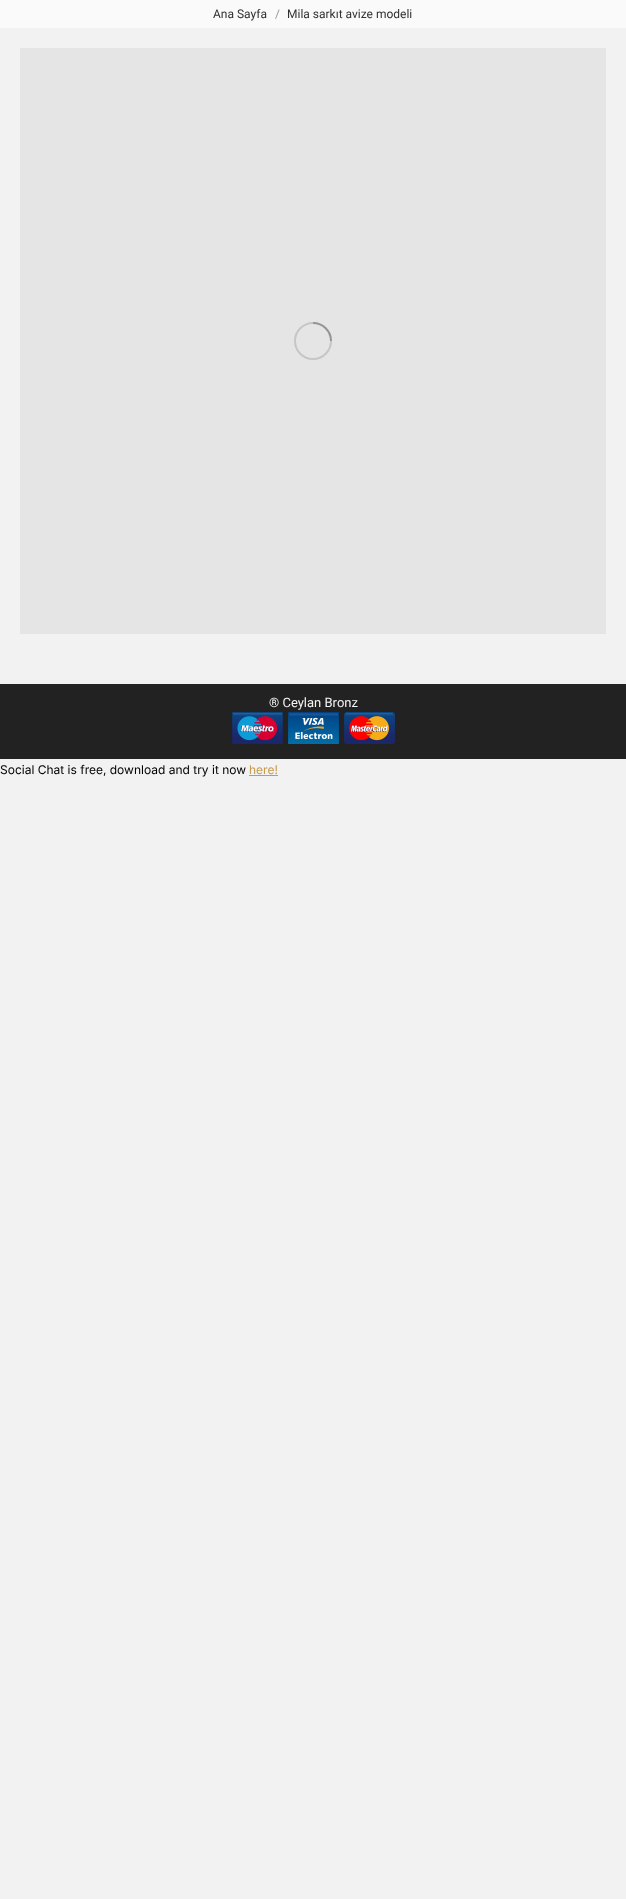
async function draw(canvas) {
  canvas.width = 626
  canvas.height = 1899
  const ctx = canvas.getContext('2d')
  ctx.miterLimit = 4
  ctx.fontKerning = 'normal'
  async function loadImage(src) {
    const img = new Image()
    img.src = src
    await img.decode()
    return img
  }

  ctx.fillStyle = '#f2f2f2'
  ctx.fillRect(0, 0, 626, 1899)
  ctx.fillStyle = '#fafafa'
  ctx.fillRect(0, 0, 626, 28)
  ctx.font = '12px Roboto'
  ctx.fillStyle = '#313131'
  ctx.fillText('Ana Sayfa', 213, 18)
  ctx.fillStyle = '#969696'
  ctx.fillText('/', 275, 18)
  ctx.fillStyle = '#313131'
  ctx.fillText('Mila sarkıt avize modeli', 287, 18)
  ctx.fillStyle = '#e5e5e5'
  ctx.fillRect(20, 48, 586, 586)
  ctx.beginPath()
  ctx.arc(313, 341, 18, 0, 2 * Math.PI)
  ctx.strokeStyle = '#c6c6c6'
  ctx.lineWidth = 2
  ctx.stroke()
  ctx.beginPath()
  ctx.moveTo(331, 341)
  ctx.bezierCurveTo(331, 331, 323, 323, 313, 323)
  ctx.strokeStyle = '#00000040'
  ctx.stroke()
  ctx.fillStyle = '#222'
  ctx.fillRect(0, 684, 626, 75)
  ctx.font = '13px Roboto'
  ctx.fillStyle = '#f4f4f4'
  ctx.fillText('® Ceylan Bronz', 269, 707)
  ctx.drawImage(await loadImage('image0.png'), 232, 712, 163, 32)
  ctx.font = '12px Inter'
  ctx.fillStyle = '#000'
  ctx.fillText('Social Chat is free, download and try it now', 0, 774)
  ctx.fillStyle = '#c79a4c'
  ctx.fillText('here!', 249, 774)
  ctx.fillRect(249, 775, 29, 1)
}

draw(document.querySelector('canvas'))
